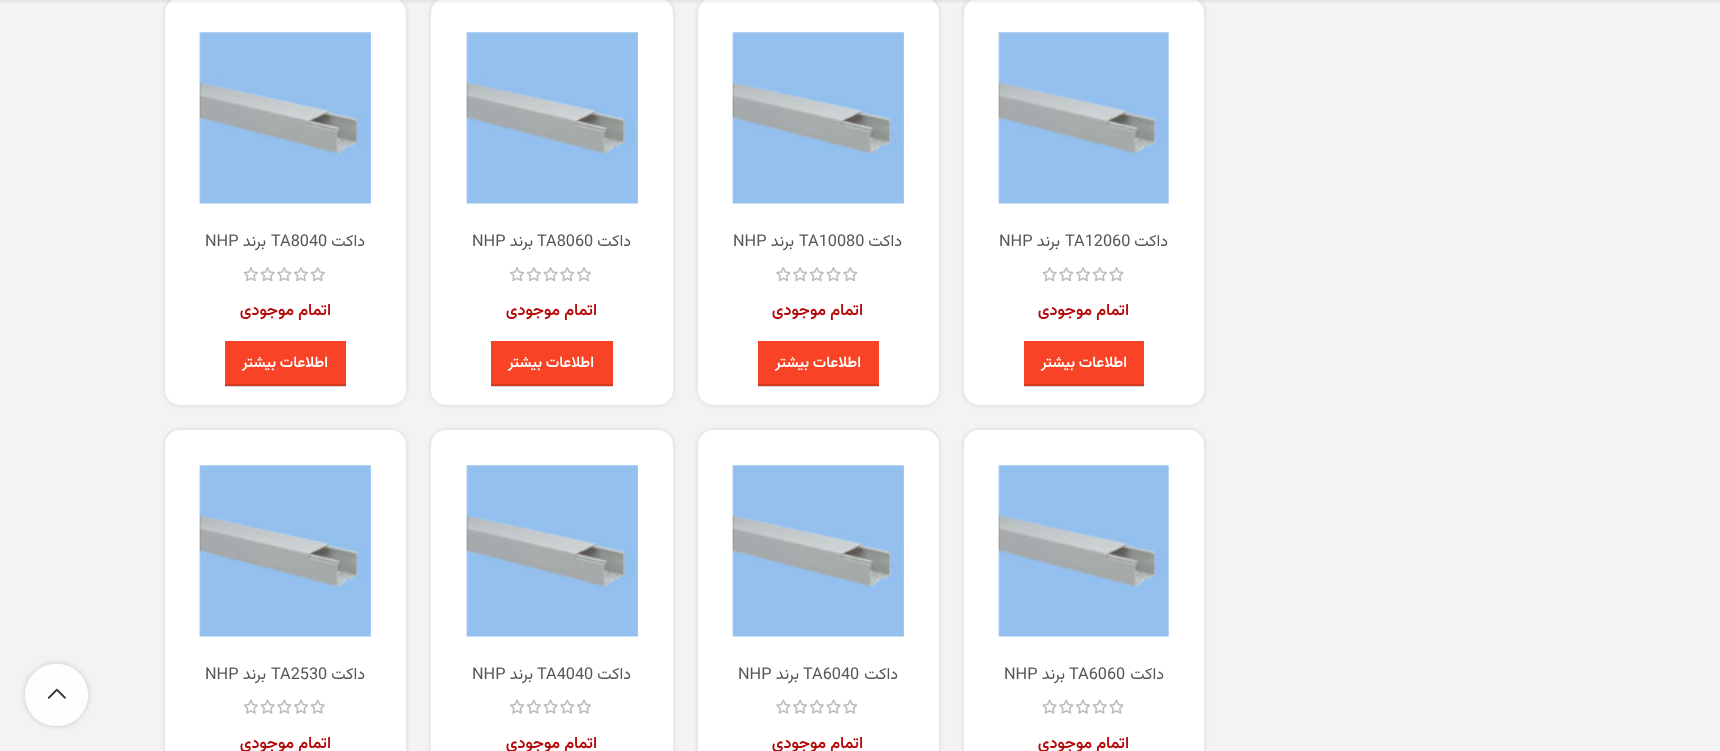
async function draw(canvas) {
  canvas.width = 1720
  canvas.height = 751
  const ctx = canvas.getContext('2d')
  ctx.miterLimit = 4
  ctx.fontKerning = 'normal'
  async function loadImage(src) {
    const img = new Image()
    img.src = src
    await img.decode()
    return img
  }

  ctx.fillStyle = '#f3f3f3'
  ctx.fillRect(0, 0, 1720, 751)
  ctx.fillStyle = '#0000001f'
  ctx.filter = 'blur(2.5px)'
  ctx.beginPath()
  ctx.roundRect(964, -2, 240, 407, 15)
  ctx.fill()
  ctx.filter = 'none'
  ctx.fillStyle = '#fff'
  ctx.beginPath()
  ctx.roundRect(964, -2, 240, 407, 15)
  ctx.fill()
  ctx.fillStyle = '#0000001f'
  ctx.filter = 'blur(2.5px)'
  ctx.beginPath()
  ctx.roundRect(698, -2, 241, 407, 15)
  ctx.fill()
  ctx.filter = 'none'
  ctx.fillStyle = '#fff'
  ctx.beginPath()
  ctx.roundRect(698, -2, 241, 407, 15)
  ctx.fill()
  ctx.fillStyle = '#0000001f'
  ctx.filter = 'blur(2.5px)'
  ctx.beginPath()
  ctx.roundRect(431, -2, 242, 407, 15)
  ctx.fill()
  ctx.filter = 'none'
  ctx.fillStyle = '#fff'
  ctx.beginPath()
  ctx.roundRect(431, -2, 242, 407, 15)
  ctx.fill()
  ctx.fillStyle = '#0000001f'
  ctx.filter = 'blur(2.5px)'
  ctx.beginPath()
  ctx.roundRect(165, -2, 241, 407, 15)
  ctx.fill()
  ctx.filter = 'none'
  ctx.fillStyle = '#fff'
  ctx.beginPath()
  ctx.roundRect(165, -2, 241, 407, 15)
  ctx.fill()
  ctx.fillStyle = '#0000001a'
  ctx.filter = 'blur(2px)'
  ctx.beginPath()
  ctx.rect(0, -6, 1720, 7)
  ctx.fill()
  ctx.filter = 'none'
  ctx.fillStyle = '#d9d9d9'
  ctx.fillRect(1024, 386, 120, 1)
  ctx.drawImage(await loadImage('image0.png'), 998, 32, 172, 172)
  ctx.direction = 'rtl'
  ctx.font = '16.25px Vazirmatn'
  ctx.fillStyle = '#565656'
  ctx.fillText('داکت', 1168, 246)
  ctx.direction = 'ltr'
  ctx.fillText('TA12060', 1065, 246)
  ctx.direction = 'rtl'
  ctx.fillText('برند', 1060, 246)
  ctx.direction = 'ltr'
  ctx.fillText('NHP', 999, 246)
  ctx.drawImage(await loadImage('image1.png'), 1042, 267, 82, 15)
  ctx.direction = 'rtl'
  ctx.font = '600 16.25px Vazirmatn'
  ctx.fillStyle = '#b50808'
  ctx.fillText('اتمام موجودی', 1129, 315)
  ctx.fillStyle = '#f94327'
  ctx.fillRect(1024, 341, 120, 43)
  ctx.fillStyle = '#d43921'
  ctx.fillRect(1024, 384, 120, 2)
  ctx.font = '600 15px Vazirmatn'
  ctx.fillStyle = '#fff'
  ctx.fillText('اطلاعات بیشتر', 1127, 367)
  ctx.fillStyle = '#d9d9d9'
  ctx.fillRect(758, 386, 121, 1)
  ctx.drawImage(await loadImage('image2.png'), 732, 32, 172, 172)
  ctx.font = '16.25px Vazirmatn'
  ctx.fillStyle = '#565656'
  ctx.fillText('داکت', 902, 246)
  ctx.direction = 'ltr'
  ctx.fillText('TA10080', 799, 246)
  ctx.direction = 'rtl'
  ctx.fillText('برند', 794, 246)
  ctx.direction = 'ltr'
  ctx.fillText('NHP', 733, 246)
  ctx.drawImage(await loadImage('image3.png'), 776, 267, 82, 15)
  ctx.direction = 'rtl'
  ctx.font = '600 16.25px Vazirmatn'
  ctx.fillStyle = '#b50808'
  ctx.fillText('اتمام موجودی', 863, 315)
  ctx.fillStyle = '#f94327'
  ctx.fillRect(758, 341, 121, 43)
  ctx.fillStyle = '#d43921'
  ctx.fillRect(758, 384, 121, 2)
  ctx.font = '600 15px Vazirmatn'
  ctx.fillStyle = '#fff'
  ctx.fillText('اطلاعات بیشتر', 861, 367)
  ctx.fillStyle = '#d9d9d9'
  ctx.fillRect(491, 386, 122, 1)
  ctx.drawImage(await loadImage('image4.png'), 466, 32, 172, 172)
  ctx.font = '16.25px Vazirmatn'
  ctx.fillStyle = '#565656'
  ctx.fillText('داکت', 631, 246)
  ctx.direction = 'ltr'
  ctx.fillText('TA8060', 537, 246)
  ctx.direction = 'rtl'
  ctx.fillText('برند', 533, 246)
  ctx.direction = 'ltr'
  ctx.fillText('NHP', 472, 246)
  ctx.drawImage(await loadImage('image5.png'), 510, 267, 81, 15)
  ctx.direction = 'rtl'
  ctx.font = '600 16.25px Vazirmatn'
  ctx.fillStyle = '#b50808'
  ctx.fillText('اتمام موجودی', 597, 315)
  ctx.fillStyle = '#f94327'
  ctx.fillRect(491, 341, 122, 43)
  ctx.fillStyle = '#d43921'
  ctx.fillRect(491, 384, 122, 2)
  ctx.font = '600 15px Vazirmatn'
  ctx.fillStyle = '#fff'
  ctx.fillText('اطلاعات بیشتر', 594, 367)
  ctx.fillStyle = '#d9d9d9'
  ctx.fillRect(225, 386, 121, 1)
  ctx.drawImage(await loadImage('image2.png'), 199, 32, 172, 172)
  ctx.font = '16.25px Vazirmatn'
  ctx.fillStyle = '#565656'
  ctx.fillText('داکت', 365, 246)
  ctx.direction = 'ltr'
  ctx.fillText('TA8040', 271, 246)
  ctx.direction = 'rtl'
  ctx.fillText('برند', 266, 246)
  ctx.direction = 'ltr'
  ctx.fillText('NHP', 205, 246)
  ctx.drawImage(await loadImage('image6.png'), 243, 267, 82, 15)
  ctx.direction = 'rtl'
  ctx.font = '600 16.25px Vazirmatn'
  ctx.fillStyle = '#b50808'
  ctx.fillText('اتمام موجودی', 331, 315)
  ctx.fillStyle = '#f94327'
  ctx.fillRect(225, 341, 121, 43)
  ctx.fillStyle = '#d43921'
  ctx.fillRect(225, 384, 121, 2)
  ctx.font = '600 15px Vazirmatn'
  ctx.fillStyle = '#fff'
  ctx.fillText('اطلاعات بیشتر', 328, 367)
  ctx.fillStyle = '#0000001f'
  ctx.filter = 'blur(2.5px)'
  ctx.beginPath()
  ctx.roundRect(964, 430, 240, 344, 15)
  ctx.fill()
  ctx.filter = 'none'
  ctx.fillStyle = '#fff'
  ctx.beginPath()
  ctx.roundRect(964, 430, 240, 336, 15)
  ctx.fill()
  ctx.drawImage(await loadImage('image0.png'), 998, 465, 172, 172)
  ctx.font = '16.25px Vazirmatn'
  ctx.fillStyle = '#565656'
  ctx.fillText('داکت', 1164, 679)
  ctx.direction = 'ltr'
  ctx.fillText('TA6060', 1069, 679)
  ctx.direction = 'rtl'
  ctx.fillText('برند', 1065, 679)
  ctx.direction = 'ltr'
  ctx.fillText('NHP', 1004, 679)
  ctx.drawImage(await loadImage('image7.png'), 1042, 699, 82, 15)
  ctx.direction = 'rtl'
  ctx.font = '600 16.25px Vazirmatn'
  ctx.fillStyle = '#b50808'
  ctx.fillText('اتمام موجودی', 1129, 748)
  ctx.fillStyle = '#0000001f'
  ctx.filter = 'blur(2.5px)'
  ctx.beginPath()
  ctx.roundRect(698, 430, 241, 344, 15)
  ctx.fill()
  ctx.filter = 'none'
  ctx.fillStyle = '#fff'
  ctx.beginPath()
  ctx.roundRect(698, 430, 241, 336, 15)
  ctx.fill()
  ctx.drawImage(await loadImage('image2.png'), 732, 465, 172, 172)
  ctx.font = '16.25px Vazirmatn'
  ctx.fillStyle = '#565656'
  ctx.fillText('داکت', 898, 679)
  ctx.direction = 'ltr'
  ctx.fillText('TA6040', 803, 679)
  ctx.direction = 'rtl'
  ctx.fillText('برند', 799, 679)
  ctx.direction = 'ltr'
  ctx.fillText('NHP', 738, 679)
  ctx.drawImage(await loadImage('image8.png'), 776, 699, 82, 15)
  ctx.direction = 'rtl'
  ctx.font = '600 16.25px Vazirmatn'
  ctx.fillStyle = '#b50808'
  ctx.fillText('اتمام موجودی', 863, 748)
  ctx.fillStyle = '#0000001f'
  ctx.filter = 'blur(2.5px)'
  ctx.beginPath()
  ctx.roundRect(431, 430, 242, 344, 15)
  ctx.fill()
  ctx.filter = 'none'
  ctx.fillStyle = '#fff'
  ctx.beginPath()
  ctx.roundRect(431, 430, 242, 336, 15)
  ctx.fill()
  ctx.drawImage(await loadImage('image4.png'), 466, 465, 172, 172)
  ctx.font = '16.25px Vazirmatn'
  ctx.fillStyle = '#565656'
  ctx.fillText('داکت', 631, 679)
  ctx.direction = 'ltr'
  ctx.fillText('TA4040', 537, 679)
  ctx.direction = 'rtl'
  ctx.fillText('برند', 533, 679)
  ctx.direction = 'ltr'
  ctx.fillText('NHP', 472, 679)
  ctx.drawImage(await loadImage('image9.png'), 510, 699, 81, 15)
  ctx.direction = 'rtl'
  ctx.font = '600 16.25px Vazirmatn'
  ctx.fillStyle = '#b50808'
  ctx.fillText('اتمام موجودی', 597, 748)
  ctx.fillStyle = '#0000001f'
  ctx.filter = 'blur(2.5px)'
  ctx.beginPath()
  ctx.roundRect(165, 430, 241, 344, 15)
  ctx.fill()
  ctx.filter = 'none'
  ctx.fillStyle = '#fff'
  ctx.beginPath()
  ctx.roundRect(165, 430, 241, 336, 15)
  ctx.fill()
  ctx.drawImage(await loadImage('image2.png'), 199, 465, 172, 172)
  ctx.font = '16.25px Vazirmatn'
  ctx.fillStyle = '#565656'
  ctx.fillText('داکت', 365, 679)
  ctx.direction = 'ltr'
  ctx.fillText('TA2530', 271, 679)
  ctx.direction = 'rtl'
  ctx.fillText('برند', 266, 679)
  ctx.direction = 'ltr'
  ctx.fillText('NHP', 205, 679)
  ctx.drawImage(await loadImage('image10.png'), 243, 699, 82, 15)
  ctx.direction = 'rtl'
  ctx.font = '600 16.25px Vazirmatn'
  ctx.fillStyle = '#b50808'
  ctx.fillText('اتمام موجودی', 331, 748)
  ctx.save()
  ctx.beginPath()
  ctx.moveTo(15, 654)
  ctx.lineTo(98, 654)
  ctx.lineTo(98, 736)
  ctx.lineTo(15, 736)
  ctx.closePath()
  ctx.moveTo(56, 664)
  ctx.lineTo(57, 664)
  ctx.bezierCurveTo(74, 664, 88, 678, 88, 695)
  ctx.bezierCurveTo(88, 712, 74, 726, 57, 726)
  ctx.lineTo(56, 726)
  ctx.bezierCurveTo(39, 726, 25, 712, 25, 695)
  ctx.bezierCurveTo(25, 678, 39, 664, 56, 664)
  ctx.closePath()
  ctx.clip('evenodd')
  ctx.fillStyle = '#0000002b'
  ctx.filter = 'blur(3px)'
  ctx.beginPath()
  ctx.roundRect(25, 664, 63, 62, 31)
  ctx.fill()
  ctx.filter = 'none'
  ctx.restore()
  ctx.fillStyle = '#ffffffe6'
  ctx.beginPath()
  ctx.roundRect(25, 664, 63, 62, 31)
  ctx.fill()
  ctx.drawImage(await loadImage('image11.png'), 47, 688, 19, 11)
}

draw(document.querySelector('canvas'))
